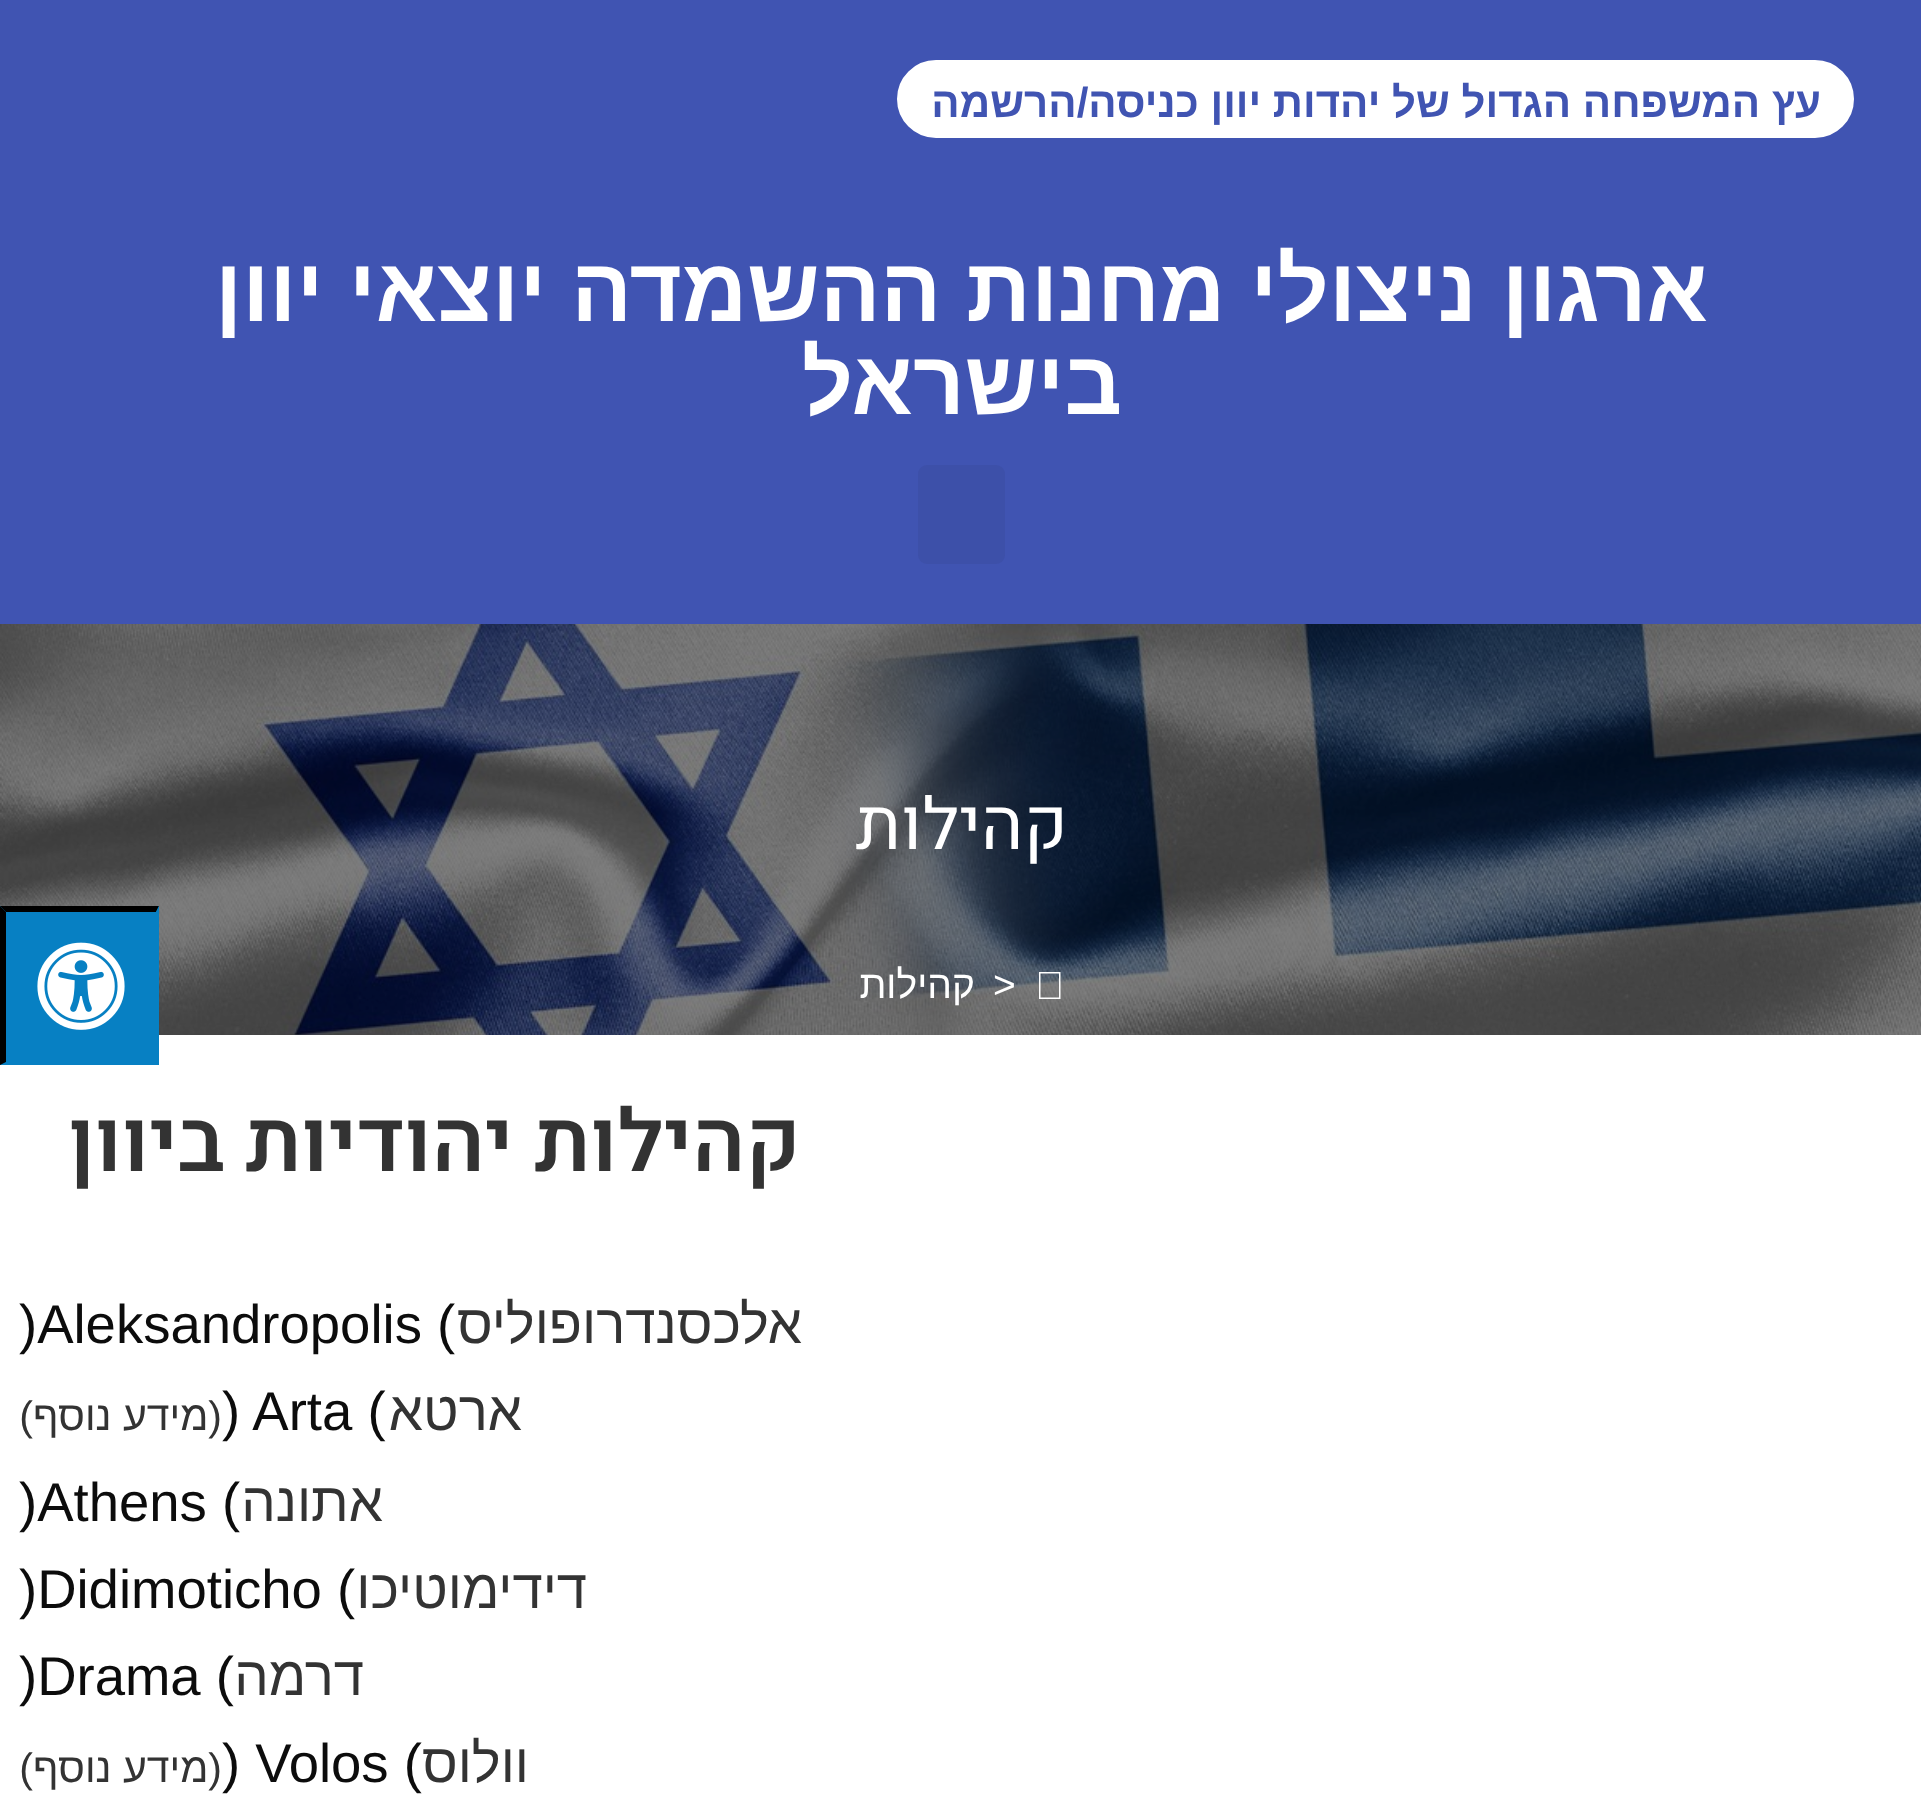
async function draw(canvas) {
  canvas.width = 1921
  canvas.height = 1807
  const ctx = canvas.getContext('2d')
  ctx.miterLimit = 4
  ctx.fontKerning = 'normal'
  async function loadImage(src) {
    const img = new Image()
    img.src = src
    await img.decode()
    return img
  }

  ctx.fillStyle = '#4054b2'
  ctx.fillRect(0, 0, 1921, 1807)
  ctx.fillStyle = '#fff'
  ctx.beginPath()
  ctx.roundRect(898.5, 61.5, 954, 75, 37.5)
  ctx.fill()
  ctx.strokeStyle = '#fff'
  ctx.lineWidth = 3
  ctx.stroke()
  ctx.direction = 'rtl'
  ctx.font = 'bold 42px Liberation Sans'
  ctx.fillStyle = '#4054b2'
  ctx.fillText('עץ המשפחה הגדול של יהדות יוון כניסה/הרשמה', 1821, 117)
  ctx.font = 'bold 90px Liberation Sans'
  ctx.fillStyle = '#fff'
  ctx.fillText('ארגון ניצולי מחנות ההשמדה יוצאי יוון', 1708, 321)
  ctx.fillText('בישראל', 1122, 414)
  ctx.fillStyle = '#3d50a9'
  ctx.beginPath()
  ctx.roundRect(918, 465, 87, 99, 9)
  ctx.fill()
  ctx.drawImage(await loadImage('image0.png'), 0, 624, 1921, 411)
  ctx.font = '72px Heebo'
  ctx.fillStyle = '#fff'
  ctx.fillText('קהילות', 1068, 849)
  ctx.beginPath()
  ctx.moveTo(1039, 972)
  ctx.lineTo(1060.5, 972)
  ctx.lineTo(1060.5, 999)
  ctx.lineTo(1039, 999)
  ctx.closePath()
  ctx.moveTo(1040.5, 973.5)
  ctx.lineTo(1040.5, 997.5)
  ctx.lineTo(1059, 997.5)
  ctx.lineTo(1059, 973.5)
  ctx.closePath()
  ctx.fill()
  ctx.direction = 'ltr'
  ctx.font = '39px Liberation Sans'
  ctx.fillText('>', 993, 998)
  ctx.direction = 'rtl'
  ctx.fillText('קהילות', 975, 998)
  ctx.fillRect(0, 1035, 1921, 772)
  ctx.font = '600 87px Heebo'
  ctx.fillStyle = '#333'
  ctx.fillText('קהילות יהודיות ביוון', 801, 1171)
  ctx.font = '54.5px Liberation Sans'
  ctx.fillText('אלכסנדרופוליס', 802, 1343)
  ctx.direction = 'ltr'
  ctx.fillStyle = '#0c0c0c'
  ctx.fillText(')Aleksandropolis (', 19, 1343)
  ctx.direction = 'rtl'
  ctx.fillStyle = '#333'
  ctx.fillText('ארטא', 522, 1430)
  ctx.direction = 'ltr'
  ctx.fillStyle = '#0c0c0c'
  ctx.fillText(') Arta (', 222, 1430)
  ctx.direction = 'rtl'
  ctx.font = '41px Liberation Sans'
  ctx.fillStyle = '#333'
  ctx.fillText('(מידע נוסף)', 222, 1430)
  ctx.font = '54.5px Liberation Sans'
  ctx.fillText('אתונה', 383, 1521)
  ctx.direction = 'ltr'
  ctx.fillStyle = '#0c0c0c'
  ctx.fillText(')Athens (', 19, 1521)
  ctx.direction = 'rtl'
  ctx.fillStyle = '#333'
  ctx.fillText('דידימוטיכו', 587, 1608)
  ctx.direction = 'ltr'
  ctx.fillStyle = '#0c0c0c'
  ctx.fillText(')Didimoticho (', 19, 1608)
  ctx.direction = 'rtl'
  ctx.fillStyle = '#333'
  ctx.fillText('דרמה', 364, 1695)
  ctx.direction = 'ltr'
  ctx.fillStyle = '#0c0c0c'
  ctx.fillText(')Drama (', 19, 1695)
  ctx.direction = 'rtl'
  ctx.fillStyle = '#333'
  ctx.fillText('וולוס', 529, 1782)
  ctx.direction = 'ltr'
  ctx.fillStyle = '#0c0c0c'
  ctx.fillText(') Volos (', 222, 1782)
  ctx.direction = 'rtl'
  ctx.font = '41px Liberation Sans'
  ctx.fillStyle = '#333'
  ctx.fillText('(מידע נוסף)', 222, 1782)
  ctx.fillStyle = '#0780c3'
  ctx.fillRect(0, 906, 159, 159)
  ctx.fillStyle = '#000'
  ctx.beginPath()
  ctx.moveTo(0, 906)
  ctx.lineTo(159, 906)
  ctx.lineTo(156, 912)
  ctx.lineTo(6, 912)
  ctx.closePath()
  ctx.fill()
  ctx.fillStyle = '#0780c3'
  ctx.beginPath()
  ctx.moveTo(159, 906)
  ctx.lineTo(159, 1065)
  ctx.lineTo(156, 1062)
  ctx.lineTo(156, 912)
  ctx.closePath()
  ctx.fill()
  ctx.fillStyle = '#000'
  ctx.beginPath()
  ctx.moveTo(0, 1065)
  ctx.lineTo(0, 906)
  ctx.lineTo(6, 912)
  ctx.lineTo(6, 1062)
  ctx.closePath()
  ctx.fill()
  ctx.drawImage(await loadImage('image1.png'), 37, 942, 88, 88)
}

draw(document.querySelector('canvas'))
